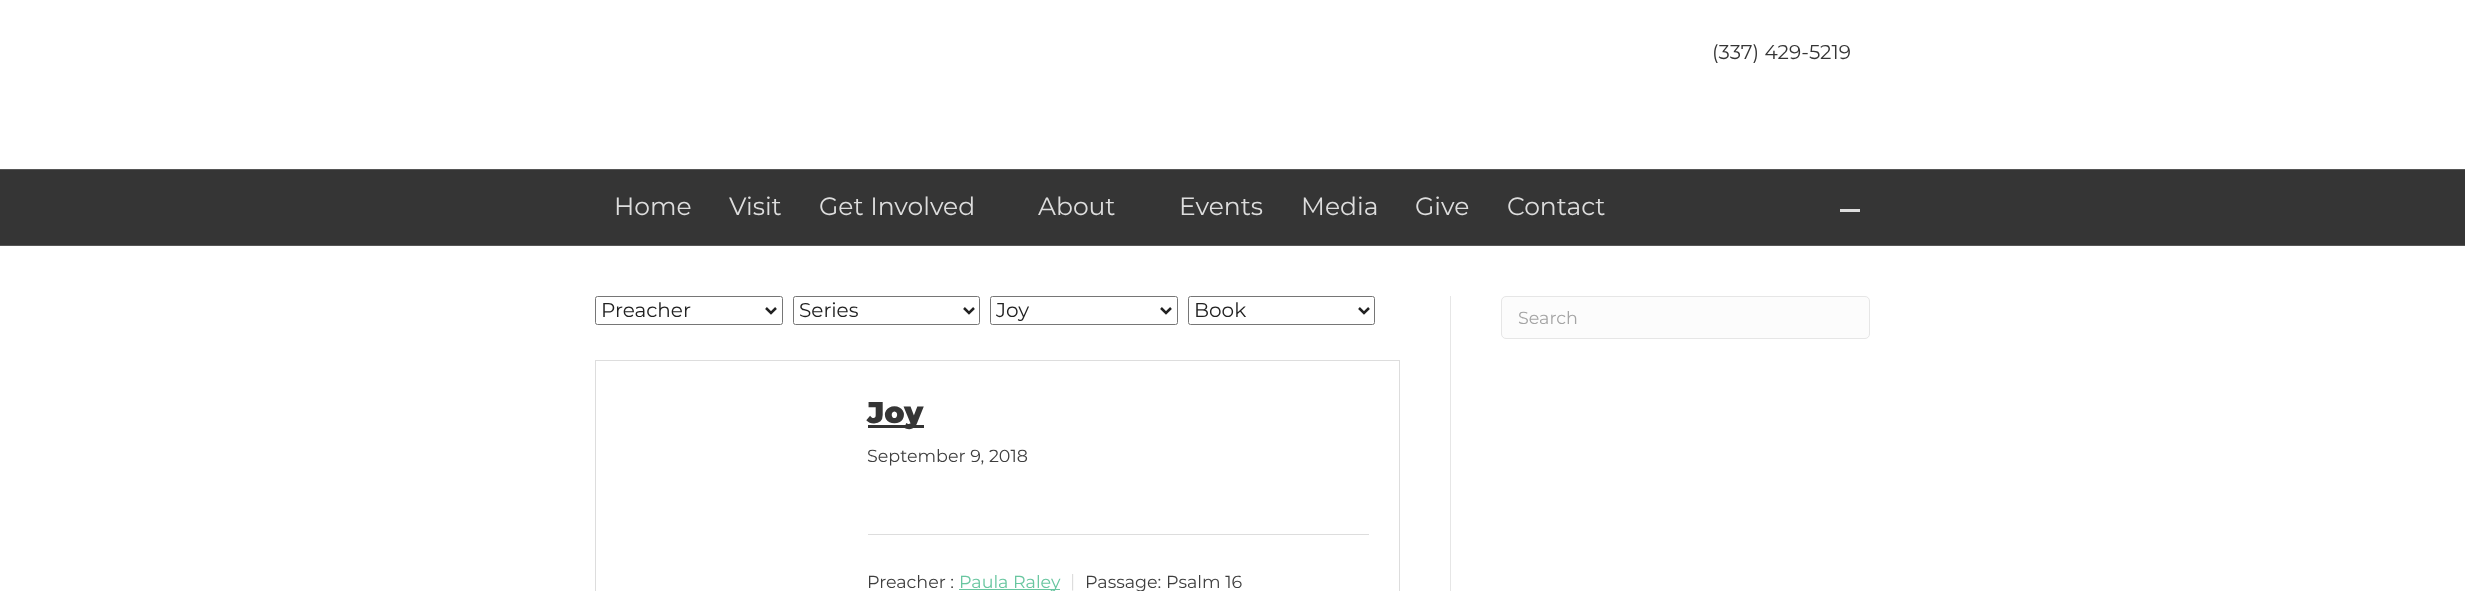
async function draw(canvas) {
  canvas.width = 2465
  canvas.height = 591
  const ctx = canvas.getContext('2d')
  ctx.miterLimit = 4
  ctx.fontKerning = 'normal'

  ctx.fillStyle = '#fff'
  ctx.fillRect(0, 0, 2465, 591)
  ctx.font = '20px Montserrat'
  ctx.fillStyle = '#353535'
  ctx.fillText('(337) 429-5219', 1712, 59)
  ctx.fillRect(0, 170, 2465, 75)
  ctx.fillStyle = '#565656'
  ctx.fillRect(0, 169, 2465, 1)
  ctx.fillRect(0, 245, 2465, 1)
  ctx.font = '25px Montserrat'
  ctx.fillStyle = '#ddd'
  ctx.fillText('Home', 614, 215)
  ctx.fillText('Visit', 729, 215)
  ctx.fillText('Get Involved', 819, 215)
  ctx.fillText('About', 1038, 215)
  ctx.fillText('Events', 1179, 215)
  ctx.fillText('Media', 1301, 215)
  ctx.fillText('Give', 1415, 215)
  ctx.fillText('Contact', 1507, 215)
  ctx.fillRect(1840, 209, 20, 3)
  ctx.fillStyle = '#e6e6e6'
  ctx.fillRect(1450, 296, 1, 295)
  ctx.beginPath()
  ctx.roundRect(595.5, 296.5, 187, 28, 2)
  ctx.strokeStyle = '#767676'
  ctx.stroke()
  ctx.beginPath()
  ctx.moveTo(766, 308)
  ctx.lineTo(771, 313)
  ctx.lineTo(776, 308)
  ctx.strokeStyle = '#212121'
  ctx.lineWidth = 2.5
  ctx.stroke()
  ctx.font = '20px Montserrat'
  ctx.fillStyle = '#212121'
  ctx.fillText('Preacher', 601, 317)
  ctx.beginPath()
  ctx.roundRect(793.5, 296.5, 186, 28, 2)
  ctx.strokeStyle = '#767676'
  ctx.lineWidth = 1
  ctx.stroke()
  ctx.beginPath()
  ctx.moveTo(964, 308)
  ctx.lineTo(969, 313)
  ctx.lineTo(974, 308)
  ctx.strokeStyle = '#212121'
  ctx.lineWidth = 2.5
  ctx.stroke()
  ctx.fillText('Series', 799, 317)
  ctx.beginPath()
  ctx.roundRect(990.5, 296.5, 187, 28, 2)
  ctx.strokeStyle = '#767676'
  ctx.lineWidth = 1
  ctx.stroke()
  ctx.beginPath()
  ctx.moveTo(1161, 308)
  ctx.lineTo(1166, 313)
  ctx.lineTo(1171, 308)
  ctx.strokeStyle = '#212121'
  ctx.lineWidth = 2.5
  ctx.stroke()
  ctx.fillText('Joy', 996, 317)
  ctx.beginPath()
  ctx.roundRect(1188.5, 296.5, 186, 28, 2)
  ctx.strokeStyle = '#767676'
  ctx.lineWidth = 1
  ctx.stroke()
  ctx.beginPath()
  ctx.moveTo(1359, 308)
  ctx.lineTo(1364, 313)
  ctx.lineTo(1369, 308)
  ctx.strokeStyle = '#212121'
  ctx.lineWidth = 2.5
  ctx.stroke()
  ctx.fillText('Book', 1194, 317)
  ctx.strokeStyle = '#ddd'
  ctx.lineWidth = 1
  ctx.strokeRect(595.5, 360.5, 804, 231)
  ctx.fillStyle = '#333'
  ctx.fillRect(868, 425, 56, 3)
  ctx.font = '900 30px Montserrat'
  ctx.fillStyle = '#353535'
  ctx.fillText('Joy', 867, 423)
  ctx.font = '17.5px Montserrat'
  ctx.fillStyle = '#3e3e3e'
  ctx.fillText('September 9, 2018', 867, 462)
  ctx.fillStyle = '#ddd'
  ctx.fillRect(868, 534, 501, 1)
  ctx.fillStyle = '#3e3e3e'
  ctx.fillText('Preacher :', 867, 588)
  ctx.fillStyle = '#69c6a0'
  ctx.fillRect(959, 589, 101, 1)
  ctx.fillText('Paula Raley', 959, 588)
  ctx.fillStyle = '#ddd'
  ctx.fillText('|', 1070, 587)
  ctx.fillStyle = '#3e3e3e'
  ctx.fillText('Passage: Psalm 16', 1085, 588)
  ctx.fillStyle = '#fcfcfc'
  ctx.beginPath()
  ctx.roundRect(1501.5, 296.5, 368, 42, 4.5)
  ctx.fill()
  ctx.strokeStyle = '#e6e6e6'
  ctx.stroke()
  ctx.fillStyle = '#a4a4a4'
  ctx.fillText('Search', 1518, 324)
}

draw(document.querySelector('canvas'))
